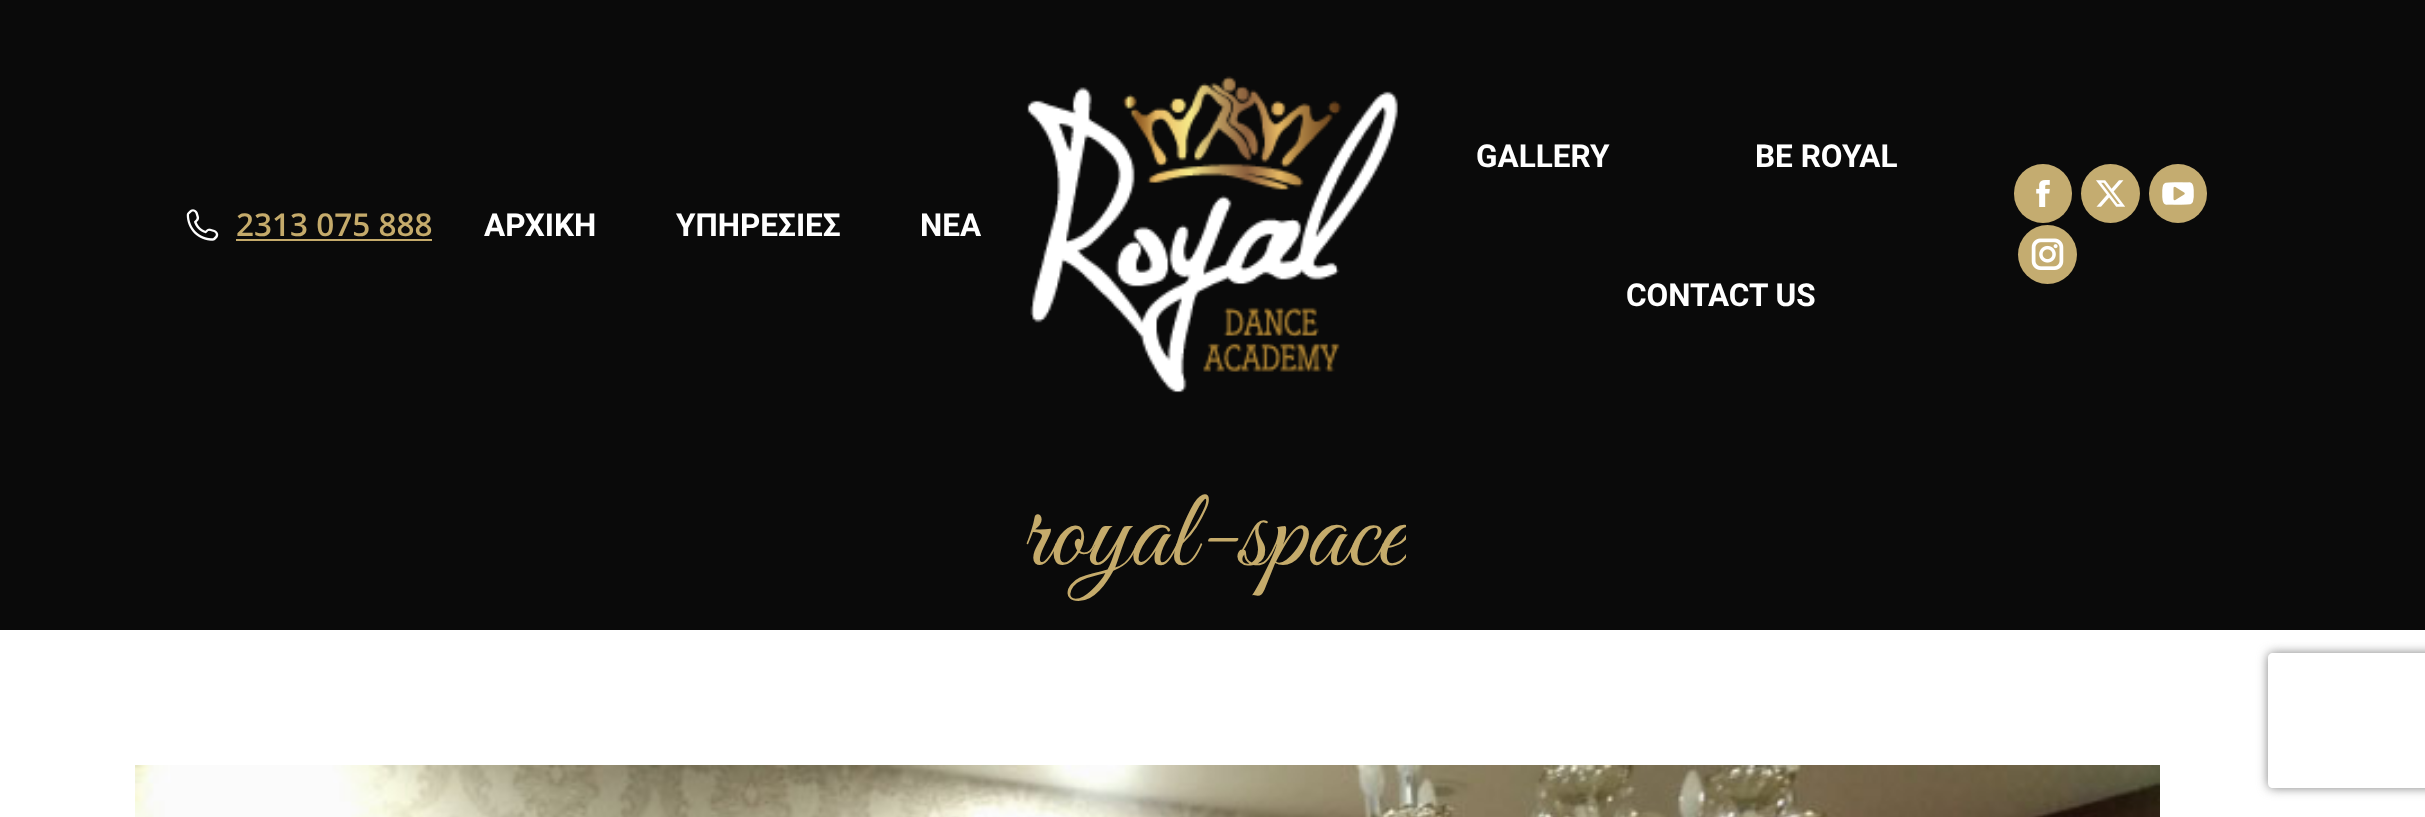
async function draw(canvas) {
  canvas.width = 2425
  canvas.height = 817
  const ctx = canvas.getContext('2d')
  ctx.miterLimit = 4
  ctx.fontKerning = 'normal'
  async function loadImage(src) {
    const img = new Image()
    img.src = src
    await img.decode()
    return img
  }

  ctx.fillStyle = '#fff'
  ctx.fillRect(0, 0, 2425, 817)
  ctx.fillStyle = '#0a0a0a'
  ctx.fillRect(0, 0, 2425, 630)
  ctx.drawImage(await loadImage('image0.png'), 186, 209, 33, 32)
  ctx.font = '600 31.5px Open Sans'
  ctx.fillStyle = '#c5ab6b'
  ctx.fillText('2313 075 888', 236, 236)
  ctx.fillRect(236, 239, 196, 2)
  ctx.font = 'bold 31.5px Roboto'
  ctx.fillStyle = '#fff'
  ctx.fillText('ΑΡΧΙΚΗ', 484, 236)
  ctx.fillText('ΥΠΗΡΕΣΙΕΣ', 676, 236)
  ctx.fillText('ΝΕΑ', 920, 236)
  ctx.drawImage(await loadImage('image1.png'), 1027, 76, 371, 317)
  ctx.fillText('GALLERY', 1476, 167)
  ctx.fillText('BE ROYAL', 1755, 167)
  ctx.fillText('CONTACT US', 1626, 306)
  ctx.fillStyle = '#c4ac70'
  ctx.beginPath()
  ctx.roundRect(2014, 164, 58, 59, 29)
  ctx.fill()
  ctx.drawImage(await loadImage('image2.png'), 2036, 180, 14, 27)
  ctx.beginPath()
  ctx.arc(2110.5, 193.5, 29.5, 0, 2 * Math.PI)
  ctx.fill()
  ctx.drawImage(await loadImage('image3.png'), 2096, 180, 29, 27)
  ctx.beginPath()
  ctx.roundRect(2149, 164, 58, 59, 29)
  ctx.fill()
  ctx.drawImage(await loadImage('image4.png'), 2162, 182, 32, 23)
  ctx.beginPath()
  ctx.arc(2047.5, 254.5, 29.5, 0, 2 * Math.PI)
  ctx.fill()
  ctx.drawImage(await loadImage('image5.png'), 2031, 238, 33, 32)
  ctx.save()
  ctx.beginPath()
  ctx.rect(1019, 461, 387, 158)
  ctx.clip()
  ctx.font = '112.5px Great Vibes'
  ctx.fillStyle = '#c5ab6b'
  ctx.fillText('royal-space', 1020, 565)
  ctx.restore()
  ctx.drawImage(await loadImage('image6.png'), 135, 765, 2025, 52)
  ctx.save()
  ctx.beginPath()
  ctx.moveTo(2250, 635)
  ctx.lineTo(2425, 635)
  ctx.lineTo(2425, 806)
  ctx.lineTo(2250, 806)
  ctx.closePath()
  ctx.moveTo(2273, 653)
  ctx.lineTo(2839, 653)
  ctx.bezierCurveTo(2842, 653, 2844, 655, 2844, 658)
  ctx.lineTo(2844, 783)
  ctx.bezierCurveTo(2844, 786, 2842, 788, 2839, 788)
  ctx.lineTo(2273, 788)
  ctx.bezierCurveTo(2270, 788, 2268, 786, 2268, 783)
  ctx.lineTo(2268, 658)
  ctx.bezierCurveTo(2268, 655, 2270, 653, 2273, 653)
  ctx.closePath()
  ctx.clip('evenodd')
  ctx.fillStyle = '#808080'
  ctx.filter = 'blur(5.5px)'
  ctx.beginPath()
  ctx.roundRect(2268, 653, 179, 135, 5)
  ctx.fill()
  ctx.filter = 'none'
  ctx.restore()
}

draw(document.querySelector('canvas'))
